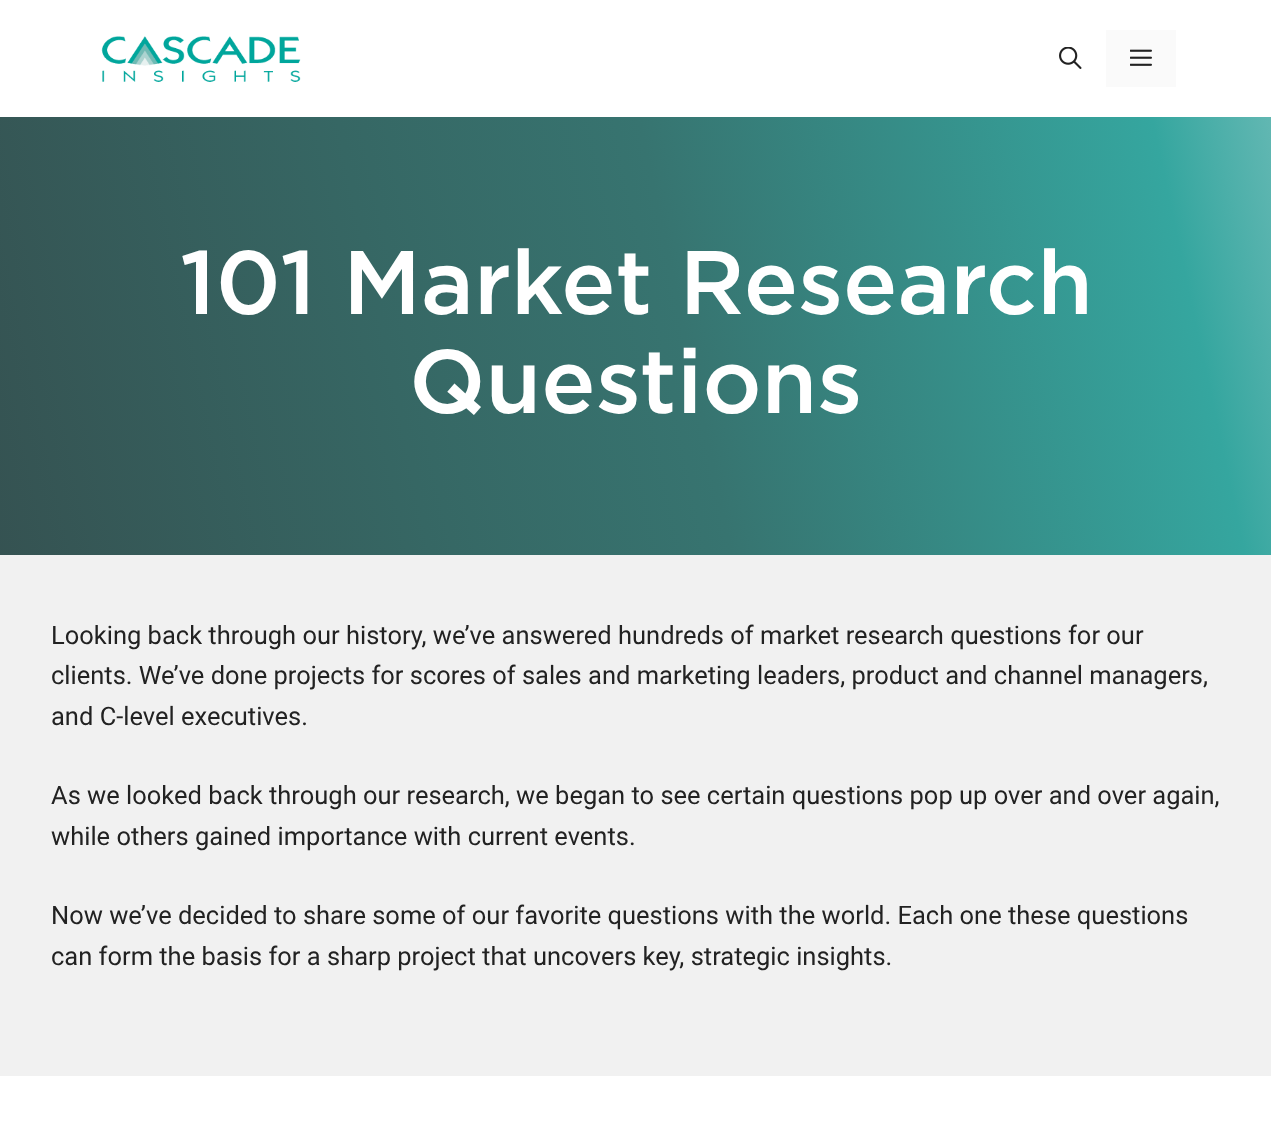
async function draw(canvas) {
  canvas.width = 1271
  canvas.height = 1126
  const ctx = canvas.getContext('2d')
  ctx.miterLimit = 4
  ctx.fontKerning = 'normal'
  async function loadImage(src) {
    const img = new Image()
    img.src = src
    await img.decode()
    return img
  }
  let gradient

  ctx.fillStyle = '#fff'
  ctx.fillRect(0, 0, 1271, 1126)
  ctx.drawImage(await loadImage('image0.png'), 101, 36, 200, 46)
  ctx.drawImage(await loadImage('image1.png'), 1059, 47, 23, 22)
  ctx.fillStyle = '#fafafa'
  ctx.fillRect(1106, 30, 70, 57)
  ctx.drawImage(await loadImage('image2.png'), 1130, 49, 22, 17)
  gradient = ctx.createLinearGradient(-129, 499, 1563, 139)
  gradient.addColorStop(0, '#1a1a1a')
  gradient.addColorStop(0, '#354d4d')
  gradient.addColorStop(0.31, '#366764')
  gradient.addColorStop(0.48, '#377470')
  gradient.addColorStop(0.77, '#35a69f')
  gradient.addColorStop(1, '#cde1e1')
  ctx.fillStyle = gradient
  ctx.fillRect(0, 117, 1271, 438)
  ctx.font = '500 90px Gotham'
  ctx.fillStyle = '#fff'
  ctx.fillText('101 Market Research', 180, 314)
  ctx.fillText('Questions', 409, 413)
  ctx.fillStyle = '#f1f1f1'
  ctx.fillRect(0, 555, 1271, 521)
  ctx.font = '25.5px Roboto'
  ctx.fillStyle = '#222'
  ctx.fillText('Looking back through our history, we’ve answered hundreds of market research questions for our', 51, 644)
  ctx.fillText('clients. We’ve done projects for scores of sales and marketing leaders, product and channel managers,', 51, 684)
  ctx.fillText('and C-level executives.', 51, 725)
  ctx.fillText('As we looked back through our research, we began to see certain questions pop up over and over again,', 51, 804)
  ctx.fillText('while others gained importance with current events.', 51, 845)
  ctx.fillText('Now we’ve decided to share some of our favorite questions with the world. Each one these questions', 51, 924)
  ctx.fillText('can form the basis for a sharp project that uncovers key, strategic insights.', 51, 965)
}

draw(document.querySelector('canvas'))
